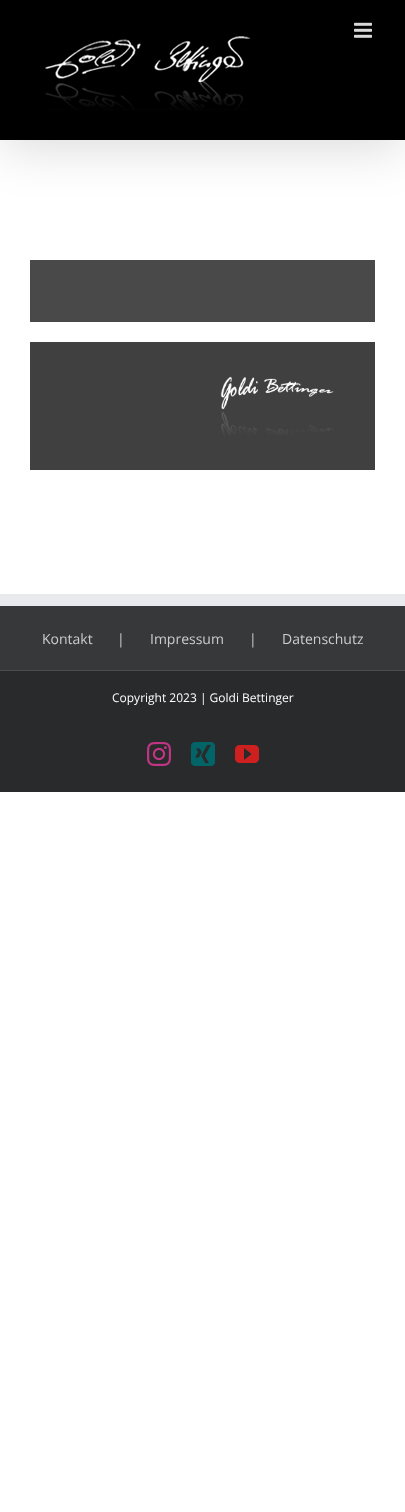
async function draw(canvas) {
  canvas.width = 405
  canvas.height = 1512
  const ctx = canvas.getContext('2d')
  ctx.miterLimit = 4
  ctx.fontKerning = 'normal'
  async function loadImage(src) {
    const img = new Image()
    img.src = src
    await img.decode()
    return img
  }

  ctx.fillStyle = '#fff'
  ctx.fillRect(0, 0, 405, 1512)
  ctx.fillStyle = '#00000024'
  ctx.filter = 'blur(25px)'
  ctx.beginPath()
  ctx.rect(2, 12, 401, 136)
  ctx.fill()
  ctx.filter = 'none'
  ctx.fillStyle = '#000'
  ctx.fillRect(0, 0, 405, 140)
  ctx.drawImage(await loadImage('image0.png'), 354, 22, 18, 16)
  ctx.drawImage(await loadImage('image1.png'), 45, 36, 205, 75)
  ctx.fillStyle = '#494949'
  ctx.fillRect(30, 260, 345, 62)
  ctx.fillStyle = '#404040'
  ctx.fillRect(30, 342, 345, 128)
  ctx.drawImage(await loadImage('image2.png'), 220, 376, 114, 60)
  ctx.fillStyle = '#363839'
  ctx.fillRect(0, 606, 405, 64)
  ctx.fillStyle = '#e9eaee'
  ctx.fillRect(0, 594, 405, 12)
  ctx.font = '14px Open Sans'
  ctx.fillStyle = '#ccc'
  ctx.fillText('Kontakt', 42, 644)
  ctx.fillText('|', 117, 644)
  ctx.fillText('Impressum', 150, 644)
  ctx.fillText('|', 249, 644)
  ctx.fillText('Datenschutz', 282, 644)
  ctx.fillStyle = '#282a2b'
  ctx.fillRect(0, 671, 405, 121)
  ctx.fillStyle = '#4b4c4d'
  ctx.fillRect(0, 670, 405, 1)
  ctx.font = '12px Open Sans'
  ctx.fillStyle = '#fff'
  ctx.fillText('Copyright 2023 | Goldi Bettinger', 112, 702)
  ctx.drawImage(await loadImage('image3.png'), 147, 742, 24, 24)
  ctx.drawImage(await loadImage('image4.png'), 191, 742, 24, 24)
  ctx.drawImage(await loadImage('image5.png'), 235, 745, 24, 18)
}

draw(document.querySelector('canvas'))
